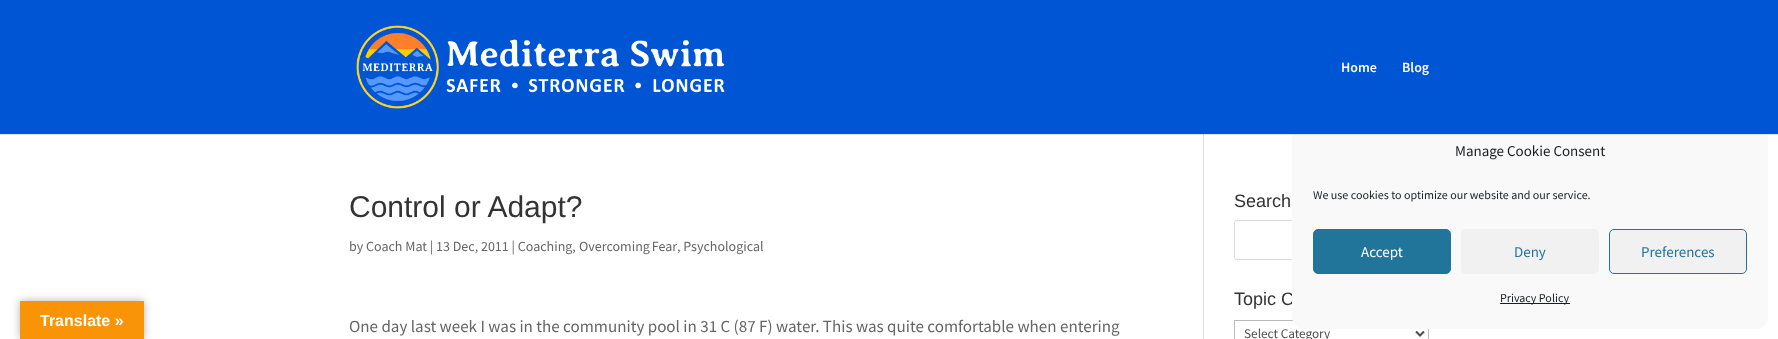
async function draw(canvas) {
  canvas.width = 1778
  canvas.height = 339
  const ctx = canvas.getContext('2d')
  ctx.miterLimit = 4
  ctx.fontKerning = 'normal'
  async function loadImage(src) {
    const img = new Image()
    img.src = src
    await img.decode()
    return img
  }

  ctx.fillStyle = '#fff'
  ctx.fillRect(0, 0, 1778, 339)
  ctx.fillStyle = '#e2e2e2'
  ctx.fillRect(1203, 134, 1, 205)
  ctx.beginPath()
  ctx.roundRect(1234.5, 220.5, 194, 39, 2.5)
  ctx.strokeStyle = '#ddd'
  ctx.stroke()
  ctx.font = '18px Liberation Sans'
  ctx.fillStyle = '#333'
  ctx.fillText('Topic C', 1234, 305)
  ctx.strokeStyle = '#bbb'
  ctx.strokeRect(1234.5, 320.5, 194, 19)
  ctx.font = '13.25px Source Sans Pro'
  ctx.fillStyle = '#4e4e4e'
  ctx.fillText('Select Category', 1244, 338)
  ctx.fillStyle = '#f9f9f9'
  ctx.beginPath()
  ctx.roundRect(1292.5, 121.5, 475, 207, 11.5)
  ctx.fill()
  ctx.strokeStyle = '#f9f9f9'
  ctx.stroke()
  ctx.fillStyle = '#0000001a'
  ctx.fillRect(0, 134, 1778, 1)
  ctx.fillStyle = '#0055d4'
  ctx.fillRect(0, 0, 1778, 134)
  ctx.drawImage(await loadImage('image0.png'), 356, 25, 369, 84)
  ctx.font = '600 14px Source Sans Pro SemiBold'
  ctx.fillStyle = '#fff'
  ctx.fillText('Home', 1341, 72)
  ctx.fillText('Blog', 1402, 72)
  ctx.font = '30px Liberation Sans'
  ctx.fillStyle = '#333'
  ctx.fillText('Control or Adapt?', 349, 217)
  ctx.font = '14px Source Sans Pro'
  ctx.fillStyle = '#666'
  ctx.fillText('by Coach Mat | 13 Dec, 2011 | Coaching,', 349, 251)
  ctx.wordSpacing = '-1px'
  ctx.fillText('Overcoming Fear', 579, 251)
  ctx.wordSpacing = '0px'
  ctx.fillText(', Psychological', 677, 251)
  ctx.font = '17px Source Sans Pro'
  ctx.fillText('One day last week I was in the community pool in 31 C (87 F) water. This was quite comfortable when entering', 349, 332)
  ctx.font = '18px Liberation Sans'
  ctx.fillStyle = '#333'
  ctx.fillText('Search', 1234, 207)
  ctx.beginPath()
  ctx.moveTo(1416, 331.5)
  ctx.lineTo(1420, 335.5)
  ctx.lineTo(1424, 331.5)
  ctx.strokeStyle = '#4e4e4e'
  ctx.lineWidth = 2
  ctx.stroke()
  ctx.font = '15px Source Sans Pro'
  ctx.fillStyle = '#191e23'
  ctx.fillText('Manage Cookie Consent', 1455, 156)
  ctx.font = '12px Source Sans Pro'
  ctx.fillText('We use cookies to optimize our website and our service.', 1313, 199)
  ctx.fillStyle = '#21759b'
  ctx.beginPath()
  ctx.roundRect(1313.5, 229.5, 137, 44, 4.5)
  ctx.fill()
  ctx.strokeStyle = '#21759b'
  ctx.lineWidth = 1
  ctx.stroke()
  ctx.font = '15px Source Sans Pro'
  ctx.fillStyle = '#fff'
  ctx.fillText('Accept', 1361, 257)
  ctx.fillStyle = '#f1f1f1'
  ctx.beginPath()
  ctx.roundRect(1461, 229, 138, 45, 5)
  ctx.fill()
  ctx.fillStyle = '#21759b'
  ctx.fillText('Deny', 1514, 257)
  ctx.fillStyle = '#f1f1f1'
  ctx.beginPath()
  ctx.roundRect(1609.5, 229.5, 137, 44, 4.5)
  ctx.fill()
  ctx.stroke()
  ctx.fillStyle = '#21759b'
  ctx.fillText('Preferences', 1641, 257)
  ctx.fillStyle = '#191e23'
  ctx.fillRect(1500, 303, 70, 1)
  ctx.font = '12px Source Sans Pro'
  ctx.fillText('Privacy Policy', 1500, 302)
  ctx.fillStyle = '#0000004d'
  ctx.filter = 'blur(4.5px)'
  ctx.beginPath()
  ctx.rect(20, 301, 124, 38)
  ctx.fill()
  ctx.filter = 'none'
  ctx.fillStyle = '#f89406'
  ctx.fillRect(20, 301, 124, 38)
  ctx.font = 'bold 16px Liberation Sans'
  ctx.fillStyle = '#fff'
  ctx.fillText('Translate »', 40, 326)
}

draw(document.querySelector('canvas'))
